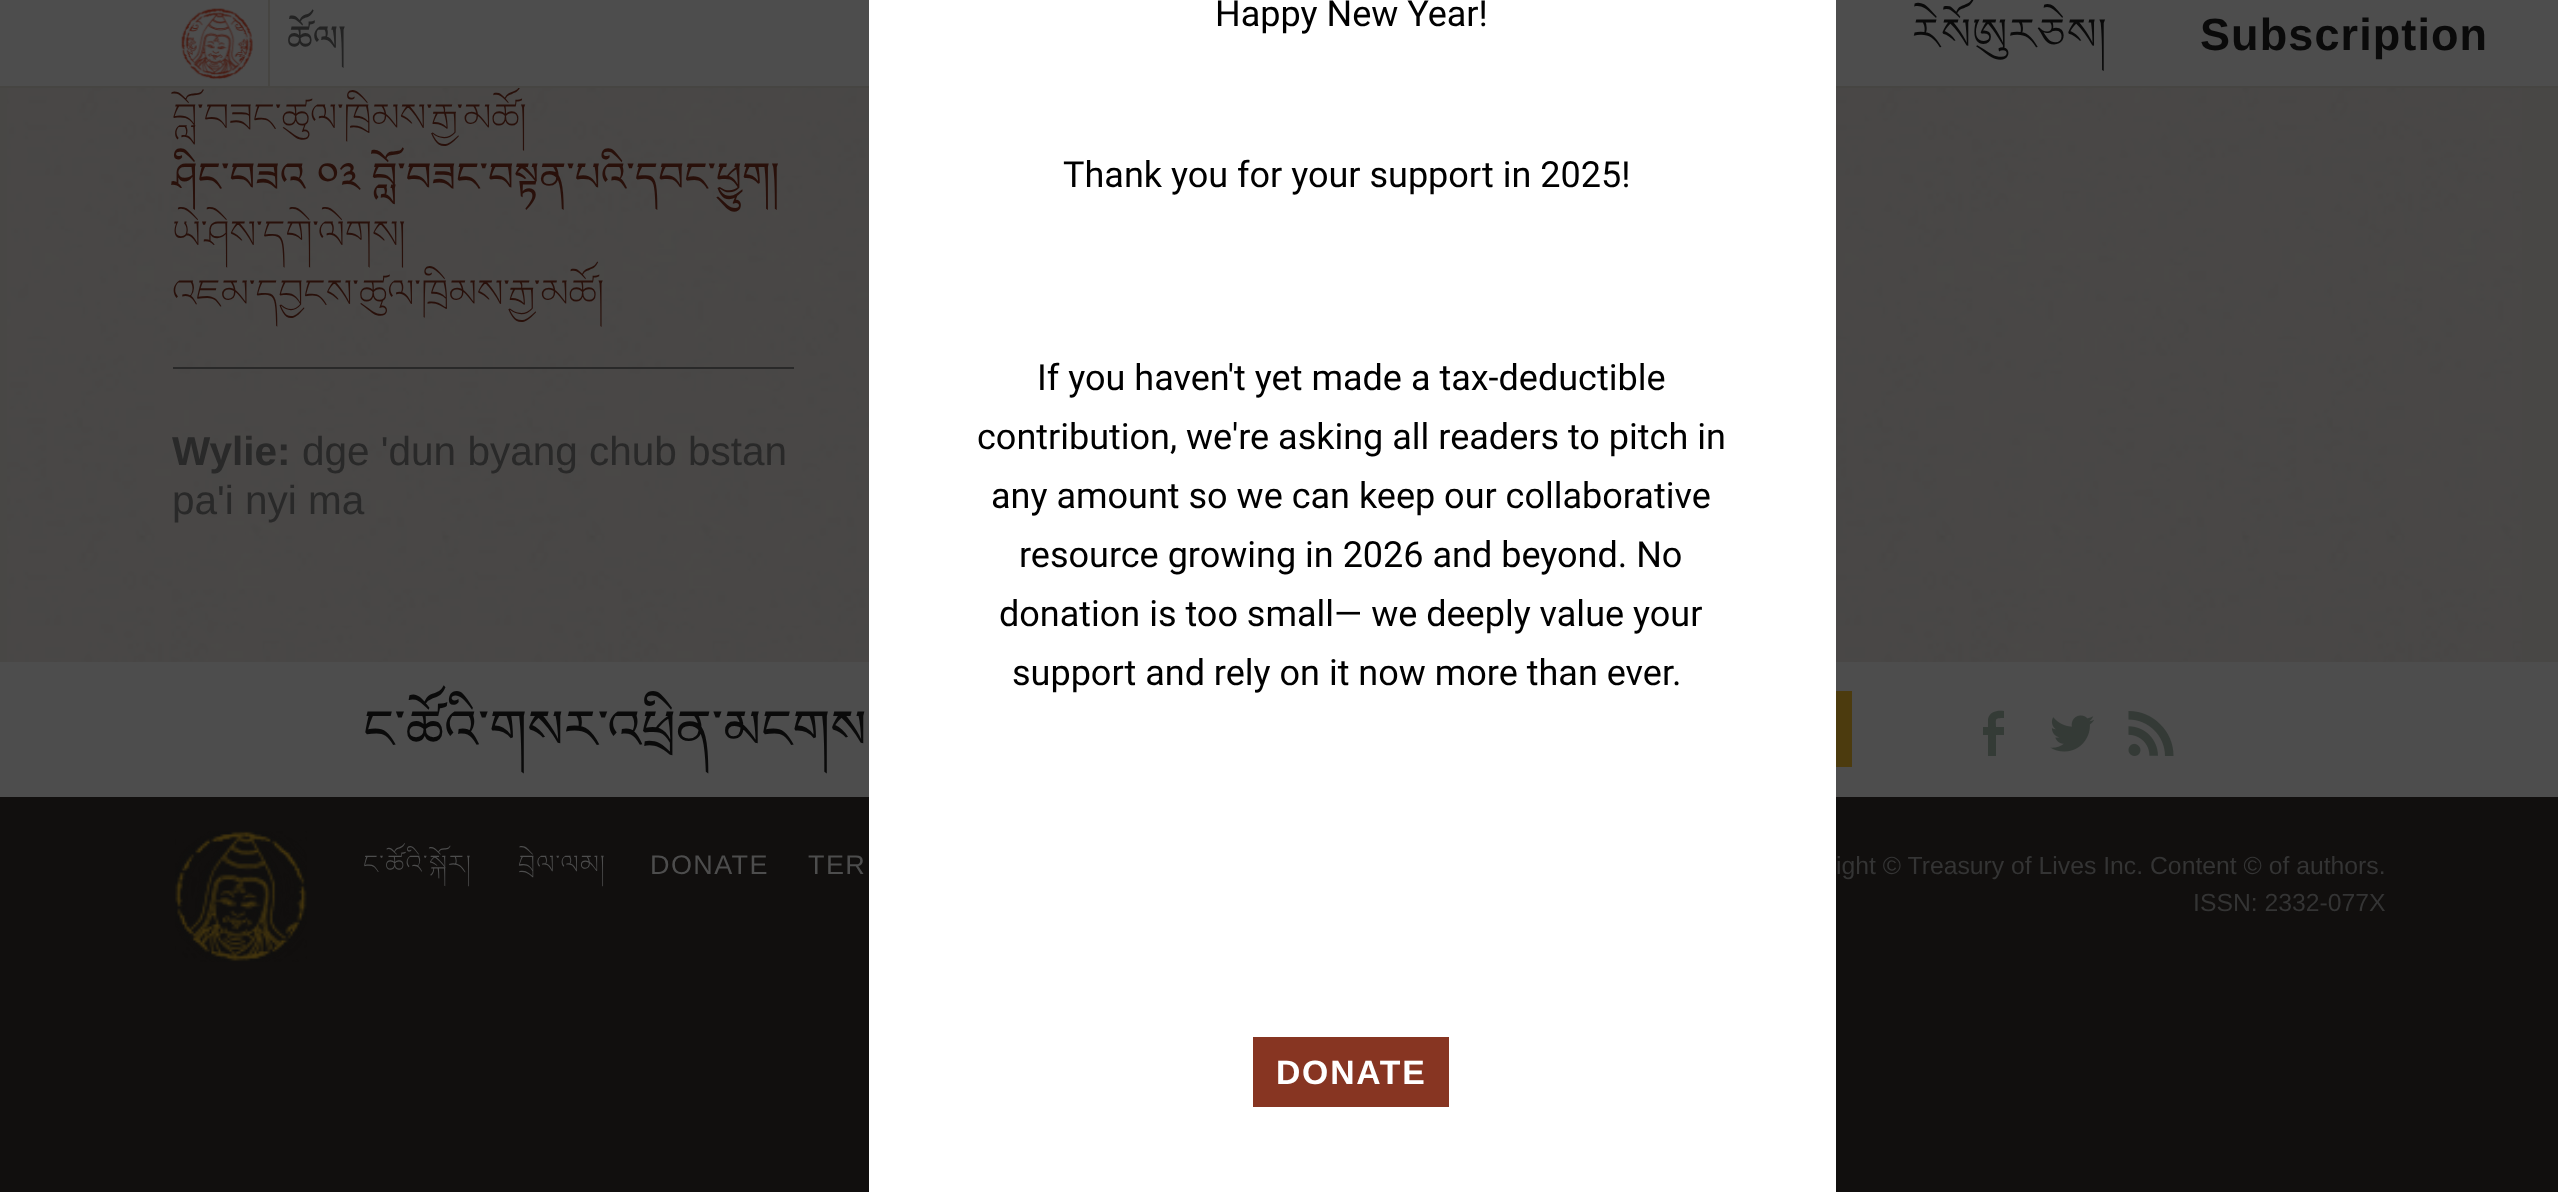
async function draw(canvas) {
  canvas.width = 2558
  canvas.height = 1192
  const ctx = canvas.getContext('2d')
  ctx.miterLimit = 4
  ctx.fontKerning = 'normal'
  async function loadImage(src) {
    const img = new Image()
    img.src = src
    await img.decode()
    return img
  }

  ctx.fillStyle = '#484745'
  ctx.fillRect(0, 0, 2558, 1192)
  ctx.drawImage(await loadImage('image0.png'), 7, 88, 2515, 574)
  ctx.font = '200 40.5px Noto Serif Tibetan'
  ctx.fillStyle = '#29100a'
  ctx.fillText('བློ་བཟང་ཚུལ་ཁྲིམས་རྒྱ་མཚོ།', 172, 132)
  ctx.fillStyle = '#4d4d4d'
  ctx.fillRect(0, 0, 2558, 86)
  ctx.fillStyle = '#464542'
  ctx.fillRect(0, 86, 2558, 2)
  ctx.drawImage(await loadImage('image1.png'), 181, 8, 72, 72)
  ctx.fillRect(268, 0, 2, 86)
  ctx.save()
  ctx.beginPath()
  ctx.rect(288, 0, 547, 79)
  ctx.clip()
  ctx.font = '36px Noto Serif Tibetan'
  ctx.fillStyle = '#232323'
  ctx.fillText('ཚོལ།', 287, 51)
  ctx.restore()
  ctx.letterSpacing = '1.1px'
  ctx.font = '300 45px Noto Serif Tibetan'
  ctx.fillStyle = '#0a0a0a'
  ctx.fillText('ཪེསོཨུརཅེས།', 1912, 50)
  ctx.font = 'bold 45px Liberation Sans'
  ctx.fillText('Subscription', 2200, 50)
  ctx.letterSpacing = '0px'
  ctx.wordSpacing = '1px'
  ctx.font = '40.5px Noto Serif Tibetan'
  ctx.fillStyle = '#29100a'
  ctx.fillText('ཤིང་བཟའ ༠༣ བློ་བཟང་བསྟན་པའི་དབང་ཕྱུག།', 172, 191)
  ctx.wordSpacing = '0px'
  ctx.font = '200 40.5px Noto Serif Tibetan'
  ctx.fillText('ཡེ་ཤེས་དགེ་ལེགས།', 172, 249)
  ctx.fillText('འཇམ་དབྱངས་ཚུལ་ཁྲིམས་རྒྱ་མཚོ།', 172, 308)
  ctx.fillStyle = '#292929'
  ctx.fillRect(173, 367, 621, 2)
  ctx.font = 'bold 40.5px Liberation Sans'
  ctx.fillText('Wylie:', 172, 465)
  ctx.font = '40.5px Liberation Sans'
  ctx.fillText('dge \'dun byang chub bstan', 302, 465)
  ctx.fillText('pa\'i nyi ma', 172, 514)
  ctx.fillStyle = '#4d4d4d'
  ctx.fillRect(0, 662, 2558, 135)
  ctx.fillStyle = '#110f0e'
  ctx.fillRect(0, 797, 2558, 395)
  ctx.fillStyle = '#fff'
  ctx.fillRect(869, 0, 967, 1192)
  ctx.font = '36px Roboto'
  ctx.fillStyle = '#000'
  ctx.fillText('Happy New Year!', 1215, 26)
  ctx.fillText('Thank you for your support in 2025!', 1063, 187)
  ctx.fillText('If you haven\'t yet made a tax-deductible', 1037, 390)
  ctx.fillText('contribution, we\'re asking all readers to pitch in', 977, 449)
  ctx.fillText('any amount so we can keep our collaborative', 991, 508)
  ctx.fillText('resource growing in 2026 and beyond. No', 1019, 567)
  ctx.fillText('donation is too small— we deeply value your', 999, 626)
  ctx.fillText('support and rely on it now more than ever.', 1012, 685)
  ctx.fillStyle = '#873522'
  ctx.fillRect(1253, 1037, 196, 70)
  ctx.letterSpacing = '1.75px'
  ctx.font = 'bold 33.75px Liberation Sans'
  ctx.fillStyle = '#fff'
  ctx.fillText('DONATE', 1276, 1084)
  ctx.letterSpacing = '0px'
  ctx.font = '54px Noto Serif Tibetan'
  ctx.fillStyle = '#0a0a0a'
  ctx.fillText('ང་ཚོའི་གསར་འཕྲིན་མངགས', 363, 748)
  ctx.fillStyle = '#4c3b0e'
  ctx.fillRect(1836, 691, 16, 76)
  ctx.fillStyle = '#343b36'
  ctx.beginPath()
  ctx.moveTo(1988, 756)
  ctx.lineTo(1996, 756)
  ctx.lineTo(1996, 735)
  ctx.lineTo(2004, 735)
  ctx.lineTo(2004, 727)
  ctx.lineTo(1996, 727)
  ctx.bezierCurveTo(1996, 719, 1994, 718, 2004, 718)
  ctx.lineTo(2004, 711)
  ctx.bezierCurveTo(1998, 710, 1990, 711, 1988, 719)
  ctx.lineTo(1988, 727)
  ctx.lineTo(1983, 727)
  ctx.lineTo(1983, 735)
  ctx.lineTo(1988, 735)
  ctx.closePath()
  ctx.fill()
  ctx.drawImage(await loadImage('image2.png'), 2050, 715, 44, 37)
  ctx.drawImage(await loadImage('image3.png'), 2128, 711, 46, 45)
  ctx.drawImage(await loadImage('image4.png'), 175, 831, 132, 131)
  ctx.letterSpacing = '1.4px'
  ctx.font = '200 27px Noto Serif Tibetan'
  ctx.fillStyle = '#4d4d4d'
  ctx.fillText('ང་ཚོའི་སྐོར།', 363, 874)
  ctx.fillText('བྲེལ་ལམ།', 518, 874)
  ctx.font = '27px Liberation Sans'
  ctx.fillText('DONATE', 650, 874)
  ctx.fillText('TER', 808, 874)
  ctx.letterSpacing = '0px'
  ctx.font = '24.75px Liberation Sans'
  ctx.fillStyle = '#343434'
  ctx.fillText('ight © Treasury of Lives Inc. Content © of authors.', 1836, 874)
  ctx.fillText('ISSN: 2332-077X', 2193, 911)
}

draw(document.querySelector('canvas'))
